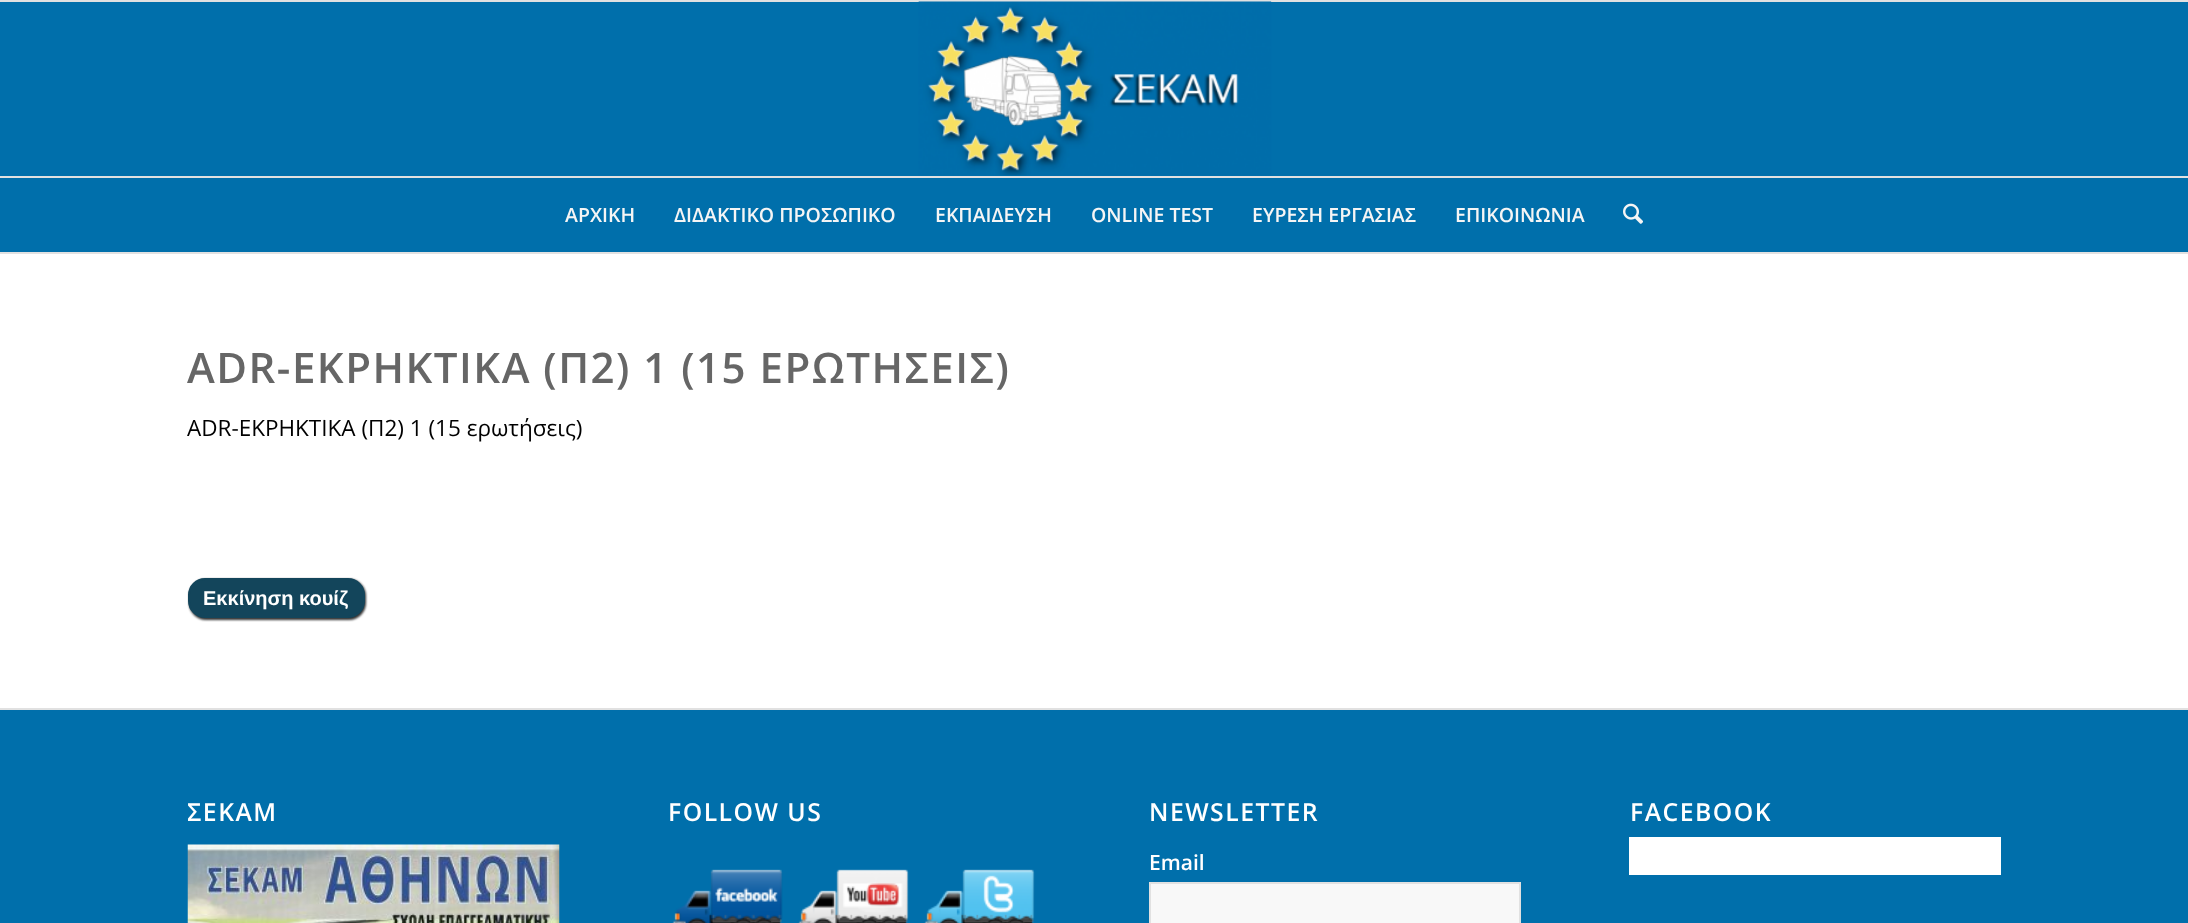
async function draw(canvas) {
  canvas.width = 2188
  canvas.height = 923
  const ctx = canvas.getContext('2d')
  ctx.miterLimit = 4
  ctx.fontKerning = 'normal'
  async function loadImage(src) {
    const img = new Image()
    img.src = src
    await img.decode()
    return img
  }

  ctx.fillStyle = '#006fab'
  ctx.fillRect(0, 0, 2188, 923)
  ctx.fillStyle = '#e1e1e1'
  ctx.fillRect(0, 0, 2188, 2)
  ctx.fillRect(0, 252, 2188, 2)
  ctx.drawImage(await loadImage('image0.png'), 918, 1, 354, 175)
  ctx.fillRect(0, 176, 2188, 2)
  ctx.font = '600 19.5px Open Sans'
  ctx.fillStyle = '#f5f5f5'
  ctx.fillText('ΑΡΧΙΚΗ', 565, 222)
  ctx.fillText('ΔΙΔΑΚΤΙΚΟ ΠΡΟΣΩΠΙΚΟ', 674, 222)
  ctx.fillText('ΕΚΠΑΙΔΕΥΣΗ', 935, 222)
  ctx.fillText('ONLINE TEST', 1091, 222)
  ctx.fillText('ΕΥΡΕΣΗ ΕΡΓΑΣΙΑΣ', 1252, 222)
  ctx.fillText('ΕΠΙΚΟΙΝΩΝΙΑ', 1455, 222)
  ctx.drawImage(await loadImage('image1.png'), 1623, 203, 20, 21)
  ctx.fillStyle = '#fff'
  ctx.fillRect(0, 254, 2188, 454)
  ctx.letterSpacing = '1.5px'
  ctx.font = '600 42px Open Sans'
  ctx.fillStyle = '#666'
  ctx.fillText('ADR-ΕΚΡΗΚΤΙΚΑ (Π2) 1 (15 ΕΡΩΤΗΣΕΙΣ)', 187, 383)
  ctx.letterSpacing = '0px'
  ctx.font = '22.5px Open Sans'
  ctx.fillStyle = '#000'
  ctx.fillText('ADR-ΕΚΡΗΚΤΙΚΑ (Π2) 1 (15 ερωτήσεις)', 187, 436)
  ctx.fillStyle = '#333'
  ctx.filter = 'blur(1px)'
  ctx.beginPath()
  ctx.roundRect(189, 579, 177, 41, 17)
  ctx.fill()
  ctx.filter = 'none'
  ctx.fillStyle = '#13455b'
  ctx.beginPath()
  ctx.roundRect(189, 579, 175, 38, 16)
  ctx.fill()
  ctx.strokeStyle = '#13455b'
  ctx.lineWidth = 2
  ctx.stroke()
  ctx.font = 'bold 20px Liberation Sans'
  ctx.fillStyle = '#fff'
  ctx.fillText('Εκκίνηση κουίζ', 203, 605)
  ctx.fillStyle = '#e1e1e1'
  ctx.fillRect(0, 708, 2188, 2)
  ctx.save()
  ctx.beginPath()
  ctx.rect(188, 777, 372, 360)
  ctx.clip()
  ctx.letterSpacing = '1.5px'
  ctx.font = '600 24.75px Open Sans'
  ctx.fillStyle = '#fff'
  ctx.fillText('ΣΕΚΑΜ', 187, 821)
  ctx.restore()
  ctx.drawImage(await loadImage('image2.png'), 187, 844, 373, 79)
  ctx.letterSpacing = '1.5px'
  ctx.font = '600 24.75px Open Sans'
  ctx.fillStyle = '#fff'
  ctx.fillText('FOLLOW US', 668, 821)
  ctx.drawImage(await loadImage('image3.png'), 672, 869, 111, 54)
  ctx.drawImage(await loadImage('image4.png'), 798, 869, 111, 54)
  ctx.drawImage(await loadImage('image5.png'), 924, 869, 111, 54)
  ctx.fillText('NEWSLETTER', 1149, 821)
  ctx.letterSpacing = '0px'
  ctx.font = '600 21px Open Sans'
  ctx.fillText('Email', 1149, 870)
  ctx.fillStyle = '#f8f8f8'
  ctx.beginPath()
  ctx.rect(1150, 883, 370, 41)
  ctx.fill()
  ctx.strokeStyle = '#e1e1e1'
  ctx.stroke()
  ctx.letterSpacing = '1.5px'
  ctx.font = '600 24.75px Open Sans'
  ctx.fillStyle = '#fff'
  ctx.fillText('FACEBOOK', 1630, 821)
  ctx.fillRect(1629, 837, 372, 38)
}

draw(document.querySelector('canvas'))
